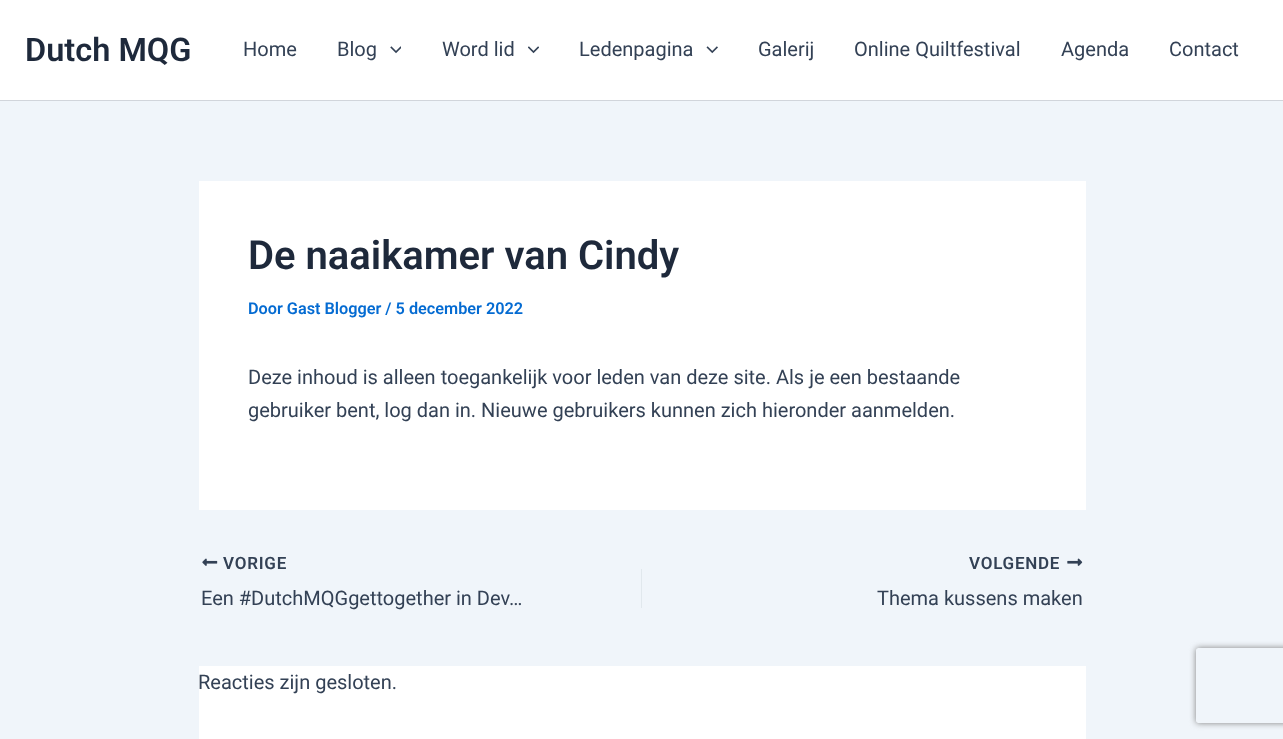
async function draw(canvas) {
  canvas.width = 1283
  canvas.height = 739
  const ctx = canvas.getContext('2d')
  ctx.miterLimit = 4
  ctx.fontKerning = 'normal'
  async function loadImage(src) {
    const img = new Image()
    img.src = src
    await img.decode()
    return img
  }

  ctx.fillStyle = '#f0f5fa'
  ctx.fillRect(0, 0, 1283, 739)
  ctx.fillStyle = '#fff'
  ctx.fillRect(0, 0, 1283, 100)
  ctx.fillStyle = '#d1d5db'
  ctx.fillRect(0, 100, 1283, 1)
  ctx.font = '600 32.5px Roboto'
  ctx.fillStyle = '#1e293b'
  ctx.fillText('Dutch MQG', 25, 61)
  ctx.font = '20px Roboto'
  ctx.fillStyle = '#334155'
  ctx.fillText('Home', 243, 56)
  ctx.fillText('Blog', 337, 56)
  ctx.drawImage(await loadImage('image0.png'), 390, 46, 11, 8)
  ctx.fillText('Word lid', 442, 56)
  ctx.drawImage(await loadImage('image1.png'), 528, 46, 11, 8)
  ctx.fillText('Ledenpagina', 579, 56)
  ctx.drawImage(await loadImage('image2.png'), 706, 46, 12, 8)
  ctx.fillText('Galerij', 758, 56)
  ctx.fillText('Online Quiltfestival', 854, 56)
  ctx.fillText('Agenda', 1061, 56)
  ctx.fillText('Contact', 1169, 56)
  ctx.fillStyle = '#fff'
  ctx.fillRect(199, 181, 887, 329)
  ctx.font = '600 40px Roboto'
  ctx.fillStyle = '#1e293b'
  ctx.fillText('De naaikamer van Cindy', 248, 269)
  ctx.font = '600 16.25px Roboto'
  ctx.fillStyle = '#046bd2'
  ctx.fillText('Door Gast Blogger / 5 december 2022', 248, 314)
  ctx.font = '20px Roboto'
  ctx.fillStyle = '#334155'
  ctx.fillText('Deze inhoud is alleen toegankelijk voor leden van deze site. Als je een bestaande', 248, 384)
  ctx.fillText('gebruiker bent, log dan in. Nieuwe gebruikers kunnen zich hieronder aanmelden.', 248, 417)
  ctx.drawImage(await loadImage('image3.png'), 202, 558, 16, 8)
  ctx.letterSpacing = '0.75px'
  ctx.font = '600 17px Roboto'
  ctx.fillText('VORIGE', 223, 569)
  ctx.letterSpacing = '0px'
  ctx.font = '20px Roboto'
  ctx.fillText('Een #DutchMQGgettogether in Dev…', 201, 605)
  ctx.fillStyle = '#e1e8ed'
  ctx.fillRect(641, 569, 1, 39)
  ctx.letterSpacing = '0.75px'
  ctx.font = '600 17px Roboto'
  ctx.fillStyle = '#334155'
  ctx.fillText('VOLGENDE', 969, 569)
  ctx.drawImage(await loadImage('image4.png'), 1067, 558, 16, 8)
  ctx.letterSpacing = '0px'
  ctx.font = '20px Roboto'
  ctx.fillText('Thema kussens maken', 877, 605)
  ctx.fillStyle = '#fff'
  ctx.fillRect(199, 666, 887, 73)
  ctx.fillStyle = '#334155'
  ctx.fillText('Reacties zijn gesloten.', 198, 689)
  ctx.save()
  ctx.beginPath()
  ctx.moveTo(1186, 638)
  ctx.lineTo(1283, 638)
  ctx.lineTo(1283, 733)
  ctx.lineTo(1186, 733)
  ctx.closePath()
  ctx.moveTo(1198.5, 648)
  ctx.lineTo(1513.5, 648)
  ctx.bezierCurveTo(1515, 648, 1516, 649, 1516, 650.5)
  ctx.lineTo(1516, 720.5)
  ctx.bezierCurveTo(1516, 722, 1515, 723, 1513.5, 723)
  ctx.lineTo(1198.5, 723)
  ctx.bezierCurveTo(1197, 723, 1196, 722, 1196, 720.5)
  ctx.lineTo(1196, 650.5)
  ctx.bezierCurveTo(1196, 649, 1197, 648, 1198.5, 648)
  ctx.closePath()
  ctx.clip('evenodd')
  ctx.fillStyle = '#808080'
  ctx.filter = 'blur(3px)'
  ctx.beginPath()
  ctx.roundRect(1196, 648, 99, 75, 2.5)
  ctx.fill()
  ctx.filter = 'none'
  ctx.restore()
}

draw(document.querySelector('canvas'))
